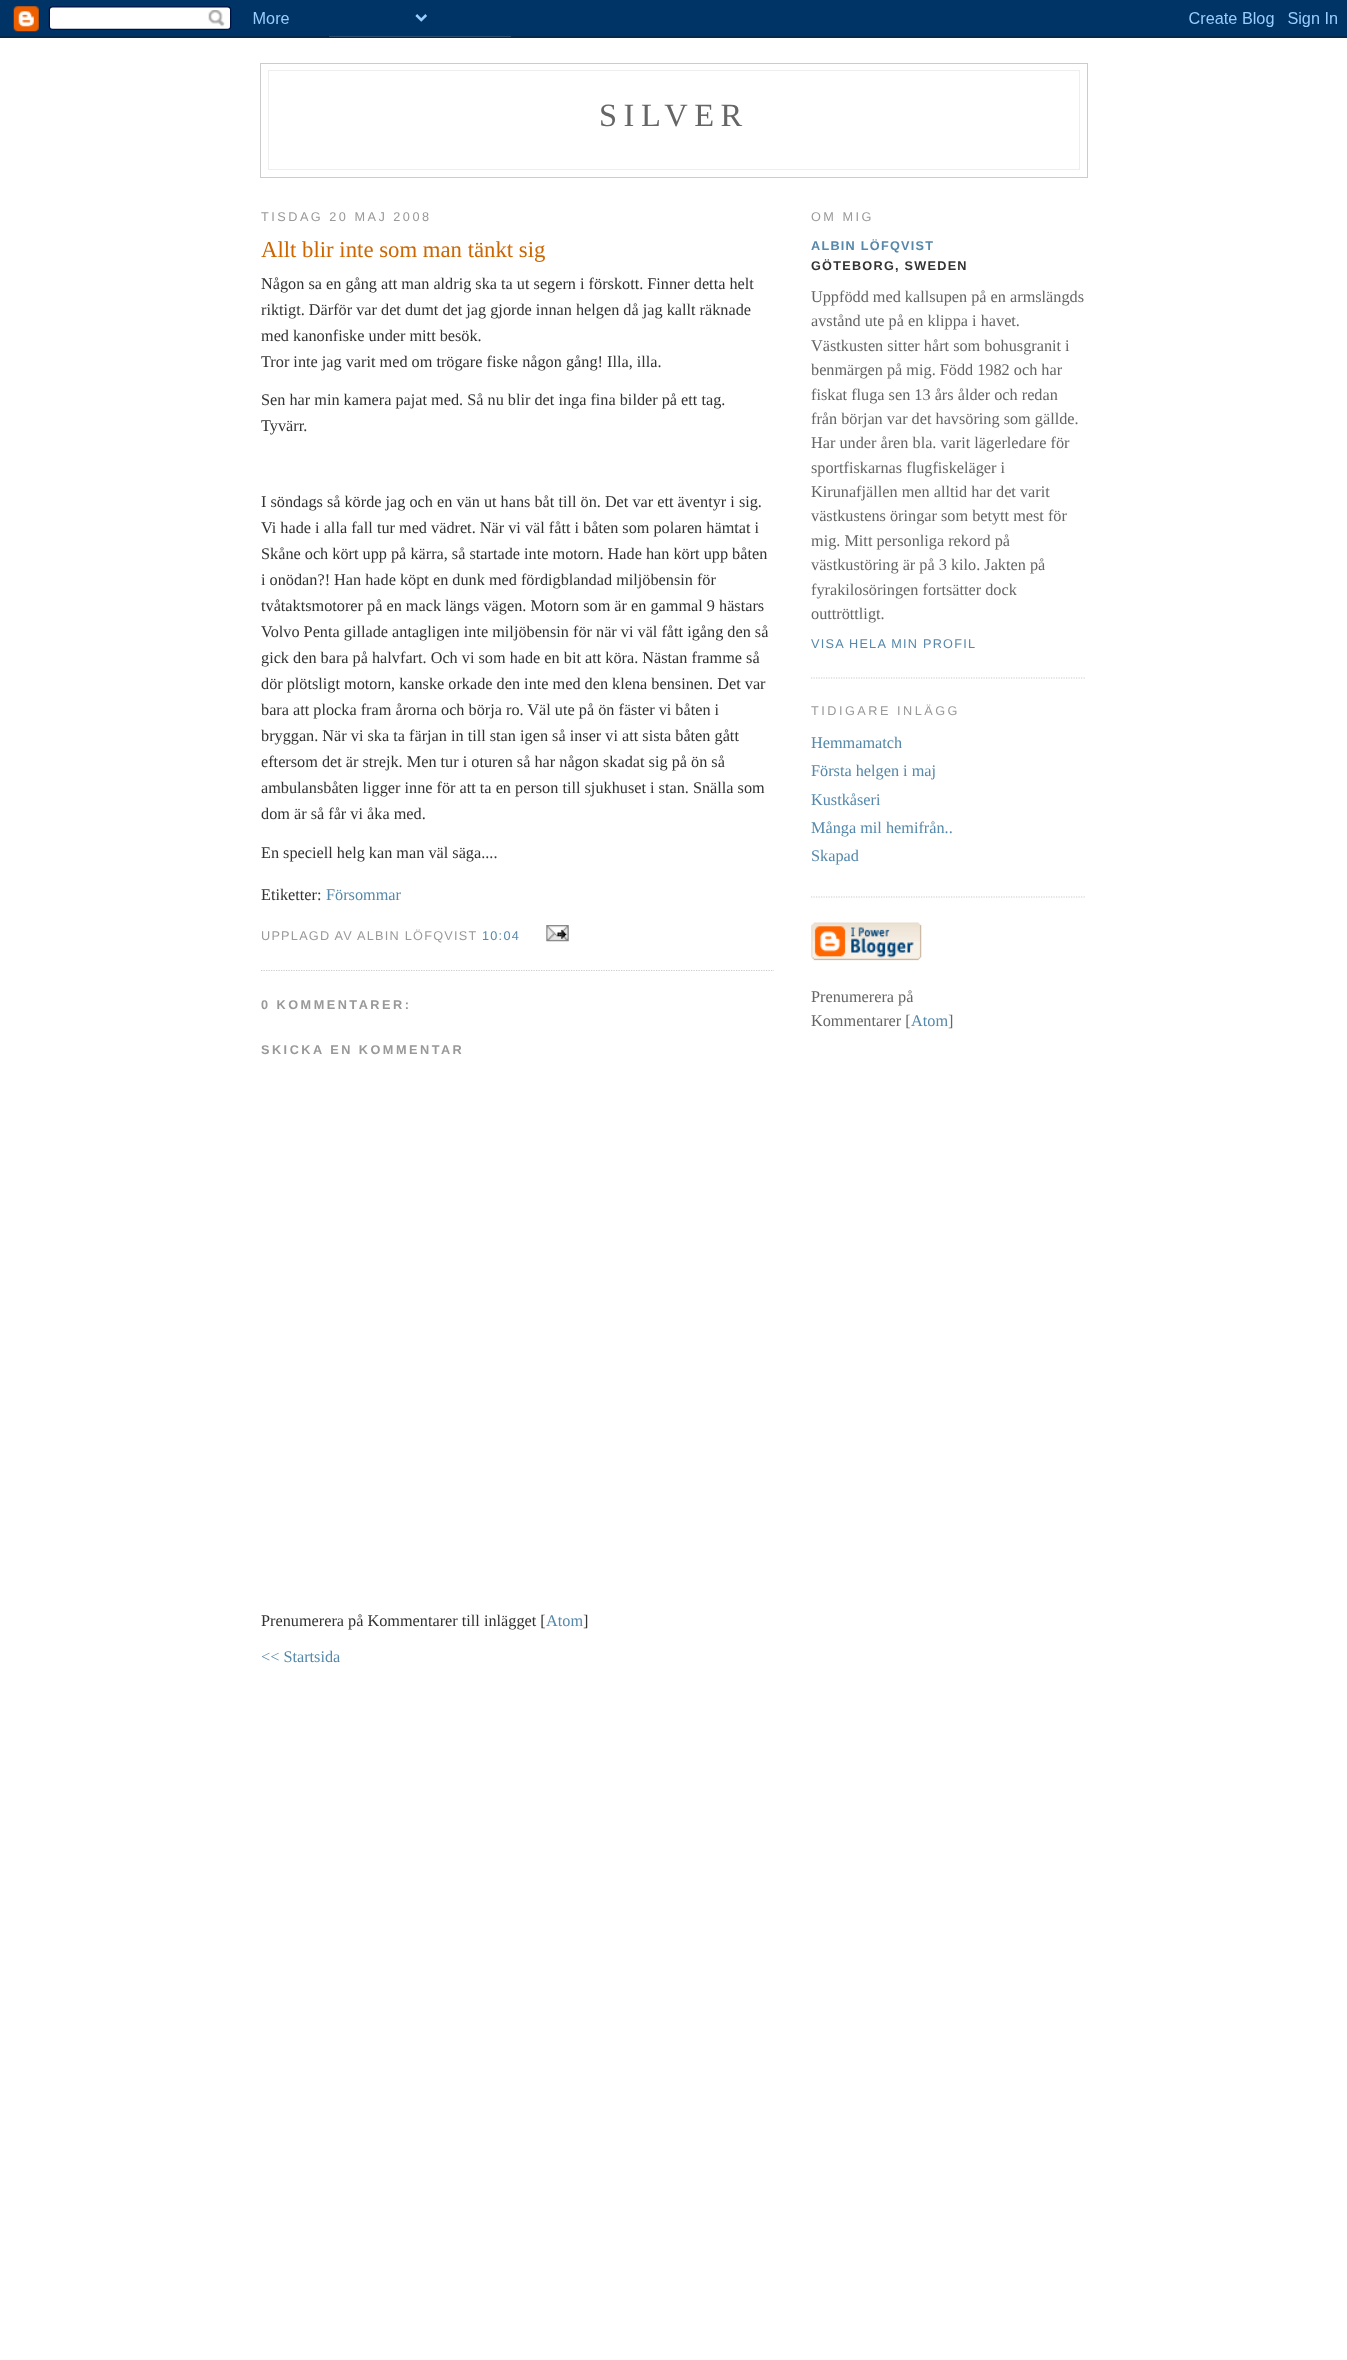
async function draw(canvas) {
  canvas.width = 1347
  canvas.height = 2360
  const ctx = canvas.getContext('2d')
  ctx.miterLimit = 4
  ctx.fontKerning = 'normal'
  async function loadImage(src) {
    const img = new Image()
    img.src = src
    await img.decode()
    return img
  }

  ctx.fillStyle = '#fff'
  ctx.fillRect(0, 0, 1347, 2360)
  ctx.drawImage(await loadImage('image0.png'), 0, 0, 1347, 38)
  ctx.strokeStyle = '#ccc'
  ctx.strokeRect(260.5, 63.5, 827, 114)
  ctx.fillStyle = '#eee'
  ctx.fillRect(268, 70, 812, 1)
  ctx.fillRect(1079, 70, 1, 100)
  ctx.fillRect(268, 70, 1, 74)
  ctx.letterSpacing = '6.5px'
  ctx.font = '32.5px Liberation Serif'
  ctx.fillStyle = '#666'
  ctx.fillText('SILVER', 599, 126)
  ctx.fillStyle = '#eee'
  ctx.fillRect(268, 169, 812, 1)
  ctx.fillRect(268, 144, 1, 26)
  ctx.letterSpacing = '2.5px'
  ctx.font = '12.7px Liberation Sans'
  ctx.fillStyle = '#999'
  ctx.fillText('TISDAG 20 MAJ 2008', 261, 221)
  ctx.beginPath()
  ctx.moveTo(261, 970.5)
  ctx.lineTo(774, 970.5)
  ctx.lineWidth = 1.2
  ctx.setLineDash([1.25, 1.25])
  ctx.stroke()
  ctx.letterSpacing = '0px'
  ctx.font = '22.75px Liberation Serif'
  ctx.fillStyle = '#c60'
  ctx.fillText('Allt blir inte som man tänkt sig', 261, 257)
  ctx.font = '16.25px Liberation Serif'
  ctx.fillStyle = '#333'
  ctx.fillText('Någon sa en gång att man aldrig ska ta ut segern i förskott. Finner detta helt', 261, 289)
  ctx.fillText('riktigt. Därför var det dumt det jag gjorde innan helgen då jag kallt räknade', 261, 315)
  ctx.fillText('med kanonfiske under mitt besök.', 261, 341)
  ctx.fillText('Tror inte jag varit med om trögare fiske någon gång! Illa, illa.', 261, 367)
  ctx.fillText('Sen har min kamera pajat med. Så nu blir det inga fina bilder på ett tag.', 261, 405)
  ctx.fillText('Tyvärr.', 261, 431)
  ctx.fillText('I söndags så körde jag och en vän ut hans båt till ön. Det var ett äventyr i sig.', 261, 507)
  ctx.fillText('Vi hade i alla fall tur med vädret. När vi väl fått i båten som polaren hämtat i', 261, 533)
  ctx.fillText('Skåne och kört upp på kärra, så startade inte motorn. Hade han kört upp båten', 261, 559)
  ctx.fillText('i onödan?! Han hade köpt en dunk med fördigblandad miljöbensin för', 261, 585)
  ctx.fillText('tvåtaktsmotorer på en mack längs vägen. Motorn som är en gammal 9 hästars', 261, 611)
  ctx.fillText('Volvo Penta gillade antagligen inte miljöbensin för när vi väl fått igång den så', 261, 637)
  ctx.fillText('gick den bara på halvfart. Och vi som hade en bit att köra. Nästan framme så', 261, 663)
  ctx.fillText('dör plötsligt motorn, kanske orkade den inte med den klena bensinen. Det var', 261, 689)
  ctx.fillText('bara att plocka fram årorna och börja ro. Väl ute på ön fäster vi båten i', 261, 715)
  ctx.fillText('bryggan. När vi ska ta färjan in till stan igen så inser vi att sista båten gått', 261, 741)
  ctx.fillText('eftersom det är strejk. Men tur i oturen så har någon skadat sig på ön så', 261, 767)
  ctx.fillText('ambulansbåten ligger inne för att ta en person till sjukhuset i stan. Snälla som', 261, 793)
  ctx.fillText('dom är så får vi åka med.', 261, 819)
  ctx.fillText('En speciell helg kan man väl säga....', 261, 858)
  ctx.fillText('Etiketter:', 261, 900)
  ctx.fillStyle = '#58a'
  ctx.fillText('Försommar', 326, 900)
  ctx.letterSpacing = '1.25px'
  ctx.font = '12.7px Liberation Sans'
  ctx.fillStyle = '#999'
  ctx.fillText('UPPLAGD AV ALBIN LÖFQVIST', 261, 940)
  ctx.fillStyle = '#58a'
  ctx.fillText('10:04', 482, 940)
  ctx.drawImage(await loadImage('image1.png'), 546, 925, 23, 17)
  ctx.letterSpacing = '2.5px'
  ctx.font = 'bold 12.7px Liberation Sans'
  ctx.fillStyle = '#999'
  ctx.fillText('0 KOMMENTARER:', 261, 1009)
  ctx.fillText('SKICKA EN KOMMENTAR', 261, 1054)
  ctx.letterSpacing = '0px'
  ctx.font = '16.25px Liberation Serif'
  ctx.fillStyle = '#333'
  ctx.fillText('Prenumerera på Kommentarer till inlägget [', 261, 1626)
  ctx.fillStyle = '#58a'
  ctx.fillText('Atom', 546, 1626)
  ctx.fillStyle = '#333'
  ctx.fillText(']', 583, 1626)
  ctx.fillStyle = '#58a'
  ctx.fillText('<< Startsida', 261, 1662)
  ctx.beginPath()
  ctx.moveTo(811, 678)
  ctx.lineTo(1086, 678)
  ctx.stroke()
  ctx.letterSpacing = '2.5px'
  ctx.font = '12.7px Liberation Sans'
  ctx.fillStyle = '#999'
  ctx.fillText('OM MIG', 811, 221)
  ctx.letterSpacing = '1.25px'
  ctx.font = 'bold 12.7px Liberation Sans'
  ctx.fillStyle = '#58a'
  ctx.fillText('ALBIN LÖFQVIST', 811, 250)
  ctx.fillStyle = '#333'
  ctx.fillText('GÖTEBORG, SWEDEN', 811, 270)
  ctx.letterSpacing = '0px'
  ctx.font = '16.25px Liberation Serif'
  ctx.fillStyle = '#666'
  ctx.fillText('Uppfödd med kallsupen på en armslängds', 811, 302)
  ctx.fillText('avstånd ute på en klippa i havet.', 811, 326)
  ctx.fillText('Västkusten sitter hårt som bohusgranit i', 811, 351)
  ctx.fillText('benmärgen på mig. Född 1982 och har', 811, 375)
  ctx.fillText('fiskat fluga sen 13 års ålder och redan', 811, 400)
  ctx.fillText('från början var det havsöring som gällde.', 811, 424)
  ctx.fillText('Har under åren bla. varit lägerledare för', 811, 448)
  ctx.fillText('sportfiskarnas flugfiskeläger i', 811, 473)
  ctx.fillText('Kirunafjällen men alltid har det varit', 811, 497)
  ctx.fillText('västkustens öringar som betytt mest för', 811, 521)
  ctx.fillText('mig. Mitt personliga rekord på', 811, 546)
  ctx.fillText('västkustöring är på 3 kilo. Jakten på', 811, 570)
  ctx.fillText('fyrakilosöringen fortsätter dock', 811, 595)
  ctx.fillText('outtröttligt.', 811, 619)
  ctx.letterSpacing = '1.25px'
  ctx.font = '12.7px Liberation Sans'
  ctx.fillStyle = '#58a'
  ctx.fillText('VISA HELA MIN PROFIL', 811, 648)
  ctx.letterSpacing = '2.5px'
  ctx.fillStyle = '#999'
  ctx.fillText('TIDIGARE INLÄGG', 811, 715)
  ctx.beginPath()
  ctx.moveTo(811, 897)
  ctx.lineTo(1086, 897)
  ctx.stroke()
  ctx.letterSpacing = '0px'
  ctx.font = '16.25px Liberation Serif'
  ctx.fillStyle = '#58a'
  ctx.fillText('Hemmamatch', 811, 748)
  ctx.fillText('Första helgen i maj', 811, 776)
  ctx.fillText('Kustkåseri', 811, 805)
  ctx.fillText('Många mil hemifrån..', 811, 833)
  ctx.fillText('Skapad', 811, 861)
  ctx.drawImage(await loadImage('image2.png'), 811, 922, 111, 39)
  ctx.fillStyle = '#666'
  ctx.fillText('Prenumerera på', 811, 1002)
  ctx.fillText('Kommentarer [', 811, 1026)
  ctx.fillStyle = '#58a'
  ctx.fillText('Atom', 911, 1026)
  ctx.fillStyle = '#666'
  ctx.fillText(']', 948, 1026)
}

draw(document.querySelector('canvas'))
